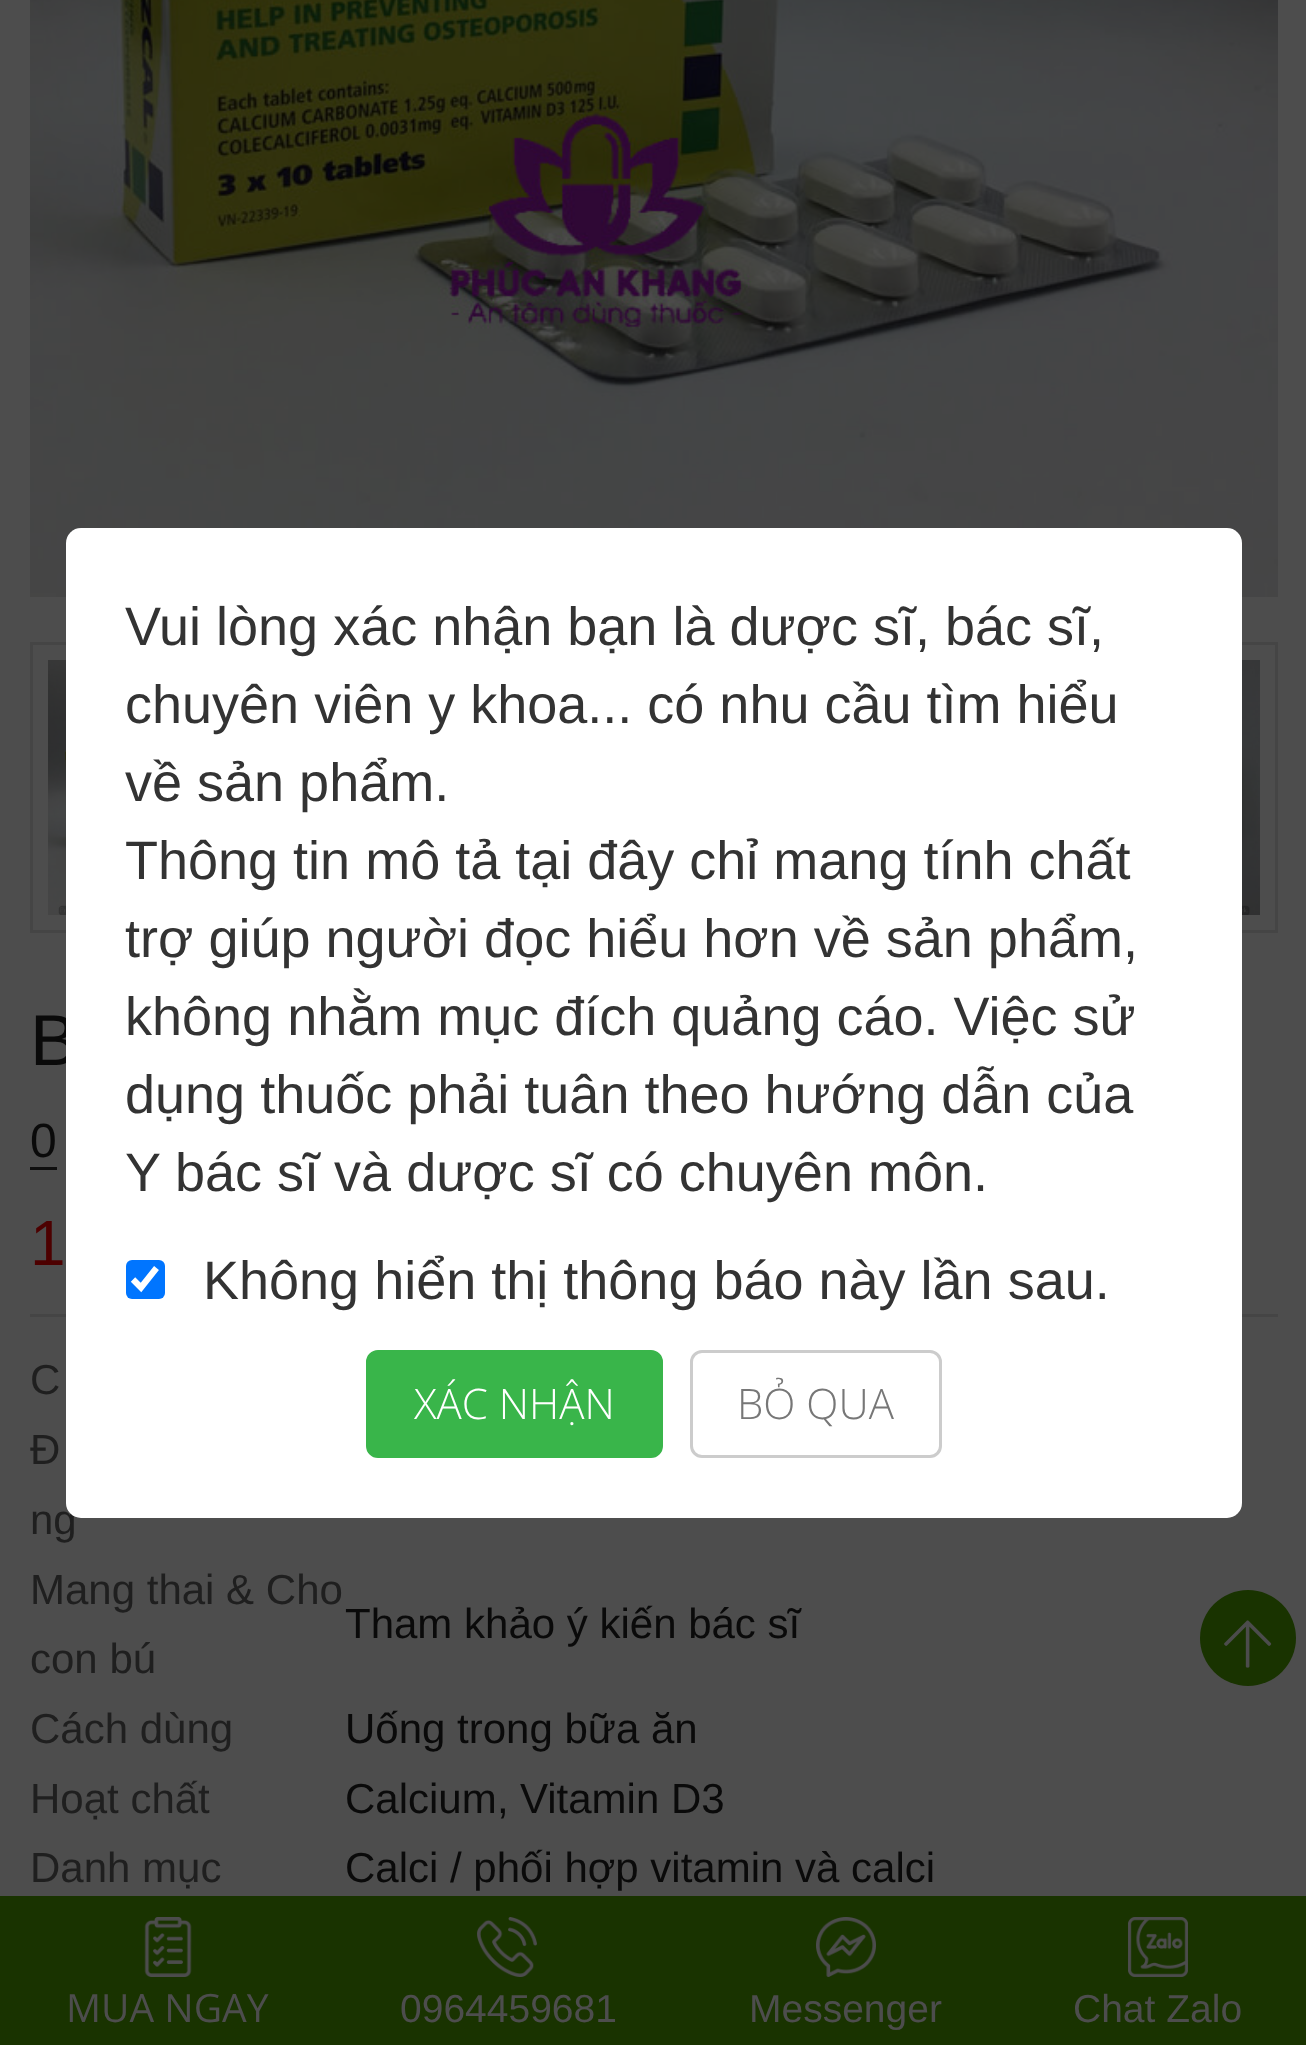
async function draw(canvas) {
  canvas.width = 1306
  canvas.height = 2045
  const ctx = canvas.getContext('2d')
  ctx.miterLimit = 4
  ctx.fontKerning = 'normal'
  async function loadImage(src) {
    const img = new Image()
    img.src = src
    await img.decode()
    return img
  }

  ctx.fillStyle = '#4d4d4d'
  ctx.fillRect(0, 0, 1306, 2045)
  ctx.drawImage(await loadImage('image0.png'), 30, 0, 1248, 597)
  ctx.strokeStyle = '#454545'
  ctx.lineWidth = 3
  ctx.strokeRect(31.5, 643.5, 288, 288)
  ctx.strokeRect(991.5, 643.5, 285, 288)
  ctx.fillStyle = '#454545'
  ctx.fillRect(30, 1314, 1248, 3)
  ctx.font = '72px Liberation Sans'
  ctx.fillStyle = '#0a0a0a'
  ctx.fillText('B', 30, 1065)
  ctx.font = '42px Liberation Sans'
  ctx.fillStyle = '#1f1f1f'
  ctx.fillText('ng', 30, 1534)
  ctx.fillStyle = '#fff'
  ctx.beginPath()
  ctx.roundRect(66, 528, 1176, 990, 15)
  ctx.fill()
  ctx.font = '54px Liberation Sans'
  ctx.fillStyle = '#333'
  ctx.fillText('Vui lòng xác nhận bạn là dược sĩ, bác sĩ,', 125, 645)
  ctx.fillText('chuyên viên y khoa... có nhu cầu tìm hiểu', 125, 723)
  ctx.fillText('về sản phẩm.', 125, 801)
  ctx.fillText('Thông tin mô tả tại đây chỉ mang tính chất', 125, 879)
  ctx.fillText('trợ giúp người đọc hiểu hơn về sản phẩm,', 125, 957)
  ctx.fillText('không nhằm mục đích quảng cáo. Việc sử', 125, 1035)
  ctx.fillText('dụng thuốc phải tuân theo hướng dẫn của', 125, 1113)
  ctx.fillText('Y bác sĩ và dược sĩ có chuyên môn.', 125, 1191)
  ctx.fillStyle = '#0075ff'
  ctx.beginPath()
  ctx.roundRect(126, 1260, 39, 39, 6)
  ctx.fill()
  ctx.beginPath()
  ctx.moveTo(133, 1279.5)
  ctx.lineTo(141, 1287.5)
  ctx.lineTo(156.5, 1268)
  ctx.strokeStyle = '#fff'
  ctx.lineWidth = 6.2
  ctx.stroke()
  ctx.fillStyle = '#333'
  ctx.fillText('Không hiển thị thông báo này lần sau.', 203, 1299)
  ctx.fillStyle = '#39b54a'
  ctx.beginPath()
  ctx.roundRect(367.5, 1351.5, 294, 105, 10.5)
  ctx.fill()
  ctx.strokeStyle = '#39b54a'
  ctx.lineWidth = 3
  ctx.stroke()
  ctx.font = '300 42px Open Sans'
  ctx.fillStyle = '#fff'
  ctx.fillText('XÁC NHẬN', 414, 1419)
  ctx.beginPath()
  ctx.roundRect(691.5, 1351.5, 249, 105, 10.5)
  ctx.strokeStyle = '#ccc'
  ctx.stroke()
  ctx.fillStyle = '#777'
  ctx.fillText('BỎ QUA', 737, 1419)
  ctx.drawImage(await loadImage('image1.png'), 48, 660, 18, 255)
  ctx.drawImage(await loadImage('image2.png'), 1242, 660, 18, 255)
  ctx.font = '48px Liberation Sans'
  ctx.fillStyle = '#0a0a0a'
  ctx.fillText('0', 30, 1157)
  ctx.fillStyle = '#0f0f0f'
  ctx.fillRect(30, 1167, 27, 3)
  ctx.font = '64px Liberation Sans'
  ctx.fillStyle = '#4d0000'
  ctx.fillText('1', 30, 1265)
  ctx.font = '42px Liberation Sans'
  ctx.fillStyle = '#1f1f1f'
  ctx.fillText('C', 30, 1394)
  ctx.fillText('Đ', 30, 1464)
  ctx.fillText('Mang thai & Cho', 30, 1604)
  ctx.fillText('con bú', 30, 1673)
  ctx.fillStyle = '#0a0a0a'
  ctx.fillText('Tham khảo ý kiến bác sĩ', 345, 1638)
  ctx.fillStyle = '#1f1f1f'
  ctx.fillText('Cách dùng', 30, 1743)
  ctx.fillStyle = '#0a0a0a'
  ctx.fillText('Uống trong bữa ăn', 345, 1743)
  ctx.fillStyle = '#1f1f1f'
  ctx.fillText('Hoạt chất', 30, 1813)
  ctx.fillStyle = '#0a0a0a'
  ctx.fillText('Calcium', 345, 1813)
  ctx.fillText(',', 497, 1813)
  ctx.fillText('Vitamin D3', 520, 1813)
  ctx.fillStyle = '#1f1f1f'
  ctx.fillText('Danh mục', 30, 1882)
  ctx.fillStyle = '#0a0a0a'
  ctx.fillText('Calci / phối hợp vitamin và calci', 345, 1882)
  ctx.fillStyle = '#193300'
  ctx.beginPath()
  ctx.arc(1248, 1638, 48, 0, 2 * Math.PI)
  ctx.fill()
  ctx.drawImage(await loadImage('image3.png'), 1224, 1620, 48, 48)
  ctx.fillRect(0, 1896, 1306, 149)
  ctx.drawImage(await loadImage('image4.png'), 144, 1917, 48, 60)
  ctx.font = '39px Open Sans'
  ctx.fillStyle = '#4d4d4d'
  ctx.fillText('MUA NGAY', 66, 2022)
  ctx.drawImage(await loadImage('image5.png'), 477, 1917, 60, 60)
  ctx.font = '39px Liberation Sans'
  ctx.fillText('0964459681', 400, 2022)
  ctx.drawImage(await loadImage('image6.png'), 816, 1917, 60, 60)
  ctx.fillText('Messenger', 749, 2022)
  ctx.drawImage(await loadImage('image7.png'), 1128, 1917, 60, 60)
  ctx.fillText('Chat Zalo', 1073, 2022)
}

draw(document.querySelector('canvas'))
